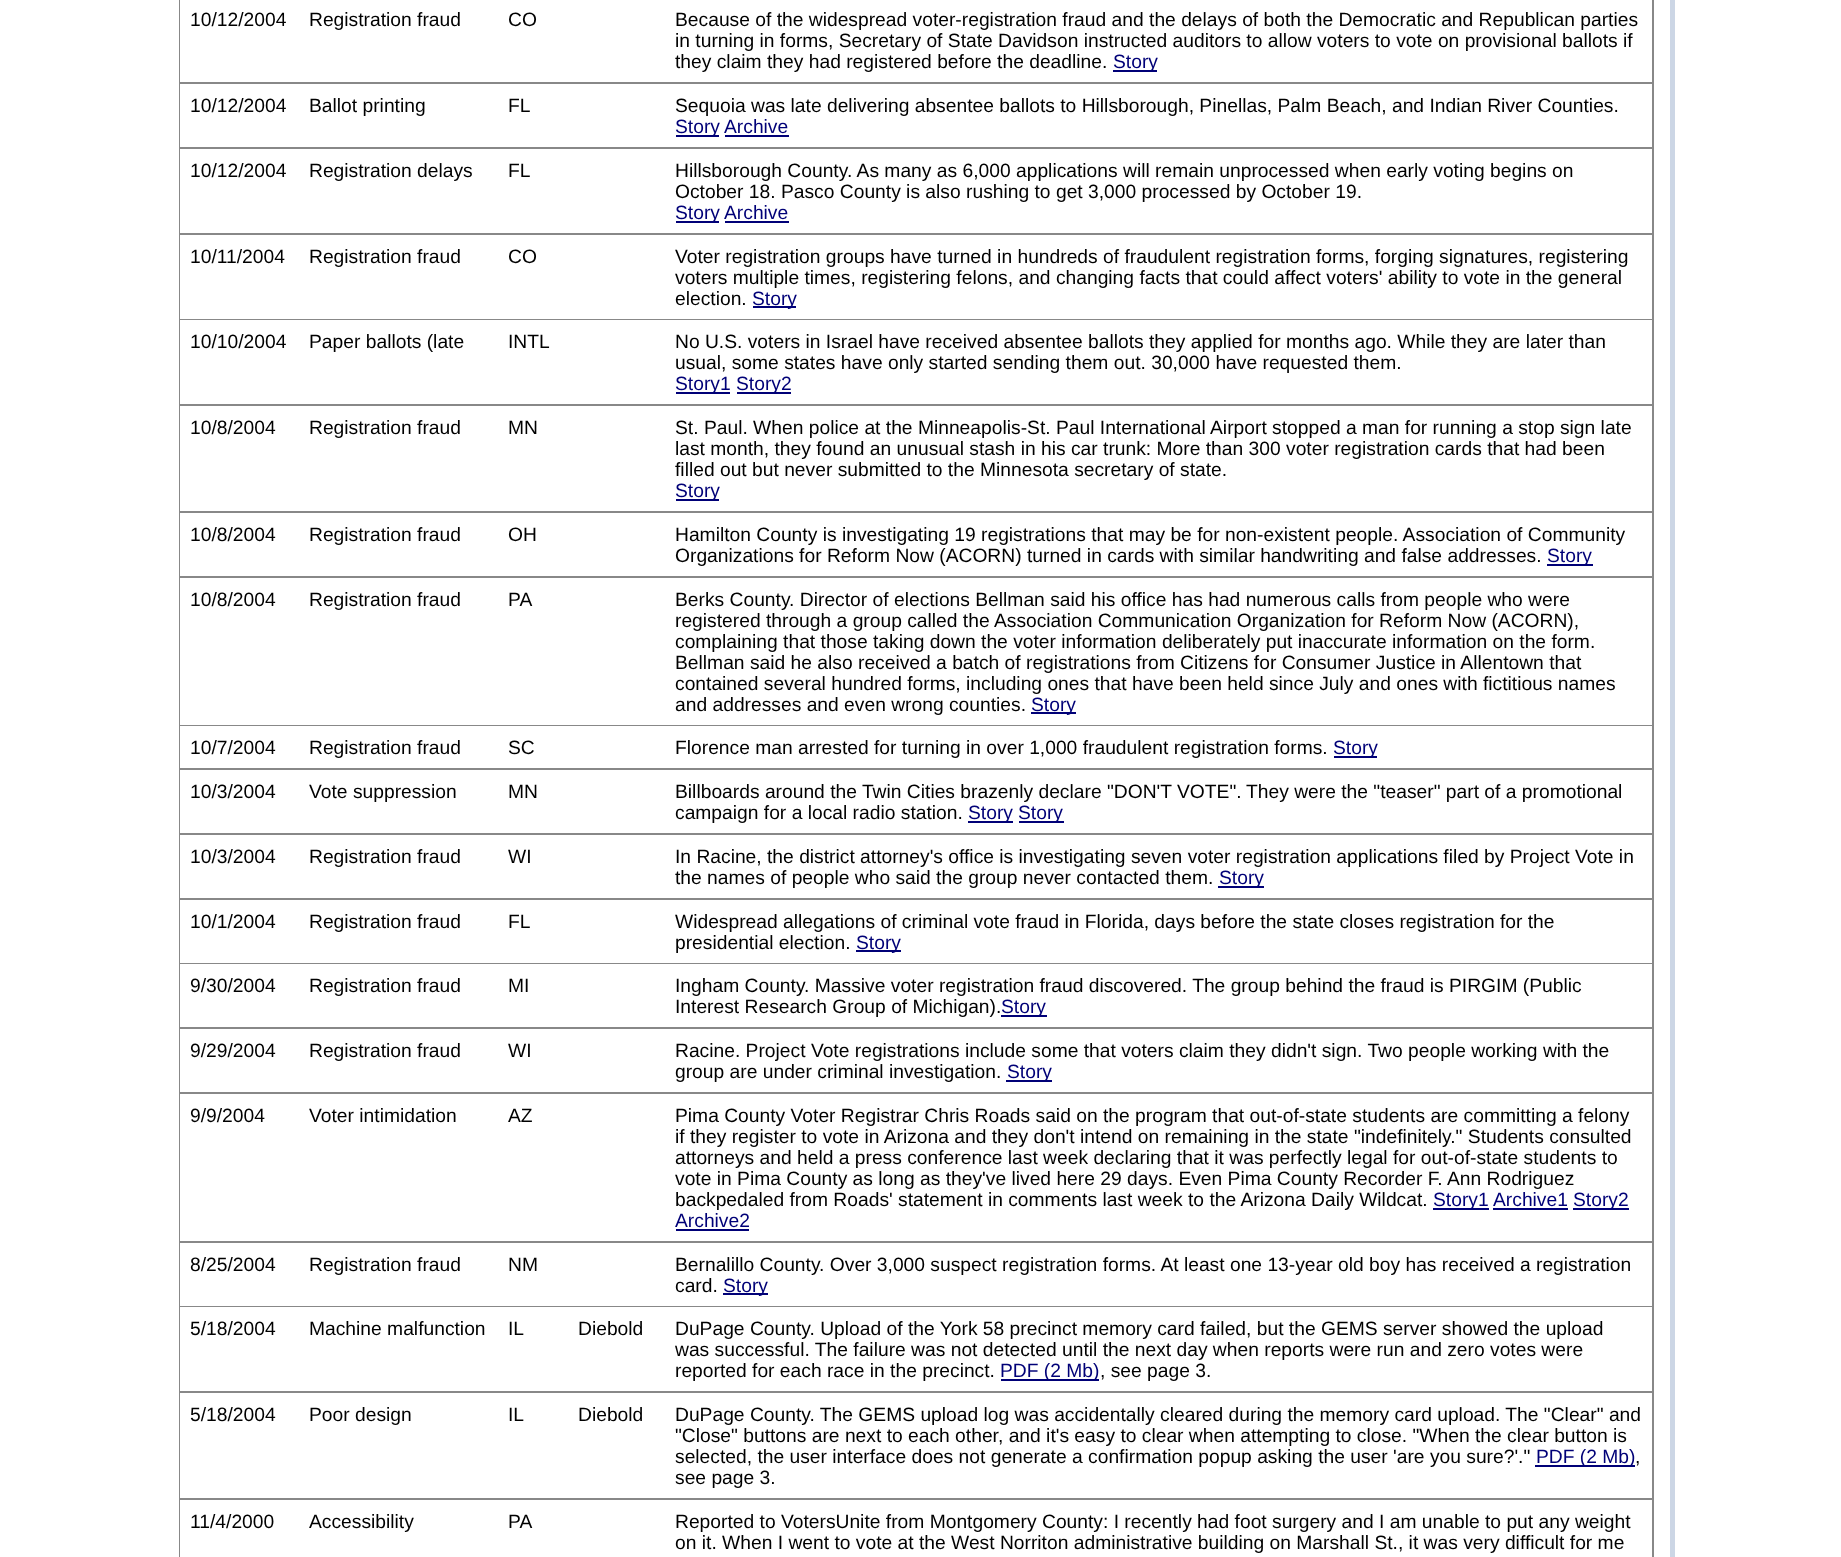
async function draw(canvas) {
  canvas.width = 1841
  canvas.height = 1557
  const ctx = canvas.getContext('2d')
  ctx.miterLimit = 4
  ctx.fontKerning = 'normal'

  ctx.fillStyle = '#fff'
  ctx.fillRect(0, 0, 1841, 1557)
  ctx.fillStyle = '#888'
  ctx.fillRect(179, 0, 1475, 1557)
  ctx.fillStyle = '#fff'
  ctx.fillRect(180, 0, 1472, 82)
  ctx.font = '19.25px Liberation Sans'
  ctx.fillStyle = '#000'
  ctx.fillText('10/12/2004', 190, 26)
  ctx.fillText('Registration fraud', 309, 26)
  ctx.fillText('CO', 508, 26)
  ctx.fillText('Because of the widespread voter-registration fraud and the delays of both the Democratic and Republican parties', 675, 26)
  ctx.fillText('in turning in forms, Secretary of State Davidson instructed auditors to allow voters to vote on provisional ballots if', 675, 47)
  ctx.fillText('they claim they had registered before the deadline.', 675, 68)
  ctx.fillStyle = '#007'
  ctx.fillRect(1113, 70, 44, 2)
  ctx.fillText('Story', 1113, 68)
  ctx.fillStyle = '#fff'
  ctx.fillRect(180, 84, 1472, 63)
  ctx.fillStyle = '#000'
  ctx.fillText('10/12/2004', 190, 112)
  ctx.fillText('Ballot printing', 309, 112)
  ctx.fillText('FL', 508, 112)
  ctx.fillText('Sequoia was late delivering absentee ballots to Hillsborough, Pinellas, Palm Beach, and Indian River Counties.', 675, 112)
  ctx.fillStyle = '#007'
  ctx.fillRect(676, 135, 43, 2)
  ctx.fillText('Story', 675, 133)
  ctx.fillText('Archive', 724, 133)
  ctx.fillRect(725, 135, 64, 2)
  ctx.fillStyle = '#fff'
  ctx.fillRect(180, 149, 1472, 84)
  ctx.fillStyle = '#000'
  ctx.fillText('10/12/2004', 190, 177)
  ctx.fillText('Registration delays', 309, 177)
  ctx.fillText('FL', 508, 177)
  ctx.fillText('Hillsborough County. As many as 6,000 applications will remain unprocessed when early voting begins on', 675, 177)
  ctx.fillText('October 18. Pasco County is also rushing to get 3,000 processed by October 19.', 675, 198)
  ctx.fillStyle = '#007'
  ctx.fillRect(676, 221, 43, 2)
  ctx.fillText('Story', 675, 219)
  ctx.fillText('Archive', 724, 219)
  ctx.fillRect(725, 221, 64, 2)
  ctx.fillStyle = '#fff'
  ctx.fillRect(180, 235, 1472, 84)
  ctx.fillStyle = '#000'
  ctx.fillText('10/11/2004', 190, 263)
  ctx.fillText('Registration fraud', 309, 263)
  ctx.fillText('CO', 508, 263)
  ctx.fillText('Voter registration groups have turned in hundreds of fraudulent registration forms, forging signatures, registering', 675, 263)
  ctx.fillText('voters multiple times, registering felons, and changing facts that could affect voters\' ability to vote in the general', 675, 284)
  ctx.fillText('election.', 675, 305)
  ctx.fillStyle = '#007'
  ctx.fillRect(753, 306, 43, 2)
  ctx.fillText('Story', 752, 305)
  ctx.fillStyle = '#fff'
  ctx.fillRect(180, 320, 1472, 84)
  ctx.fillStyle = '#000'
  ctx.fillText('10/10/2004', 190, 348)
  ctx.fillText('Paper ballots (late', 309, 348)
  ctx.fillText('INTL', 508, 348)
  ctx.fillText('No U.S. voters in Israel have received absentee ballots they applied for months ago. While they are later than', 675, 348)
  ctx.fillText('usual, some states have only started sending them out. 30,000 have requested them.', 675, 369)
  ctx.fillStyle = '#007'
  ctx.fillRect(676, 392, 54, 2)
  ctx.fillText('Story1', 675, 390)
  ctx.fillRect(737, 392, 54, 2)
  ctx.fillText('Story2', 736, 390)
  ctx.fillStyle = '#fff'
  ctx.fillRect(180, 406, 1472, 105)
  ctx.fillStyle = '#000'
  ctx.fillText('10/8/2004', 190, 434)
  ctx.fillText('Registration fraud', 309, 434)
  ctx.fillText('MN', 508, 434)
  ctx.fillText('St. Paul. When police at the Minneapolis-St. Paul International Airport stopped a man for running a stop sign late', 675, 434)
  ctx.fillText('last month, they found an unusual stash in his car trunk: More than 300 voter registration cards that had been', 675, 455)
  ctx.fillText('filled out but never submitted to the Minnesota secretary of state.', 675, 476)
  ctx.fillStyle = '#007'
  ctx.fillRect(676, 499, 43, 2)
  ctx.fillText('Story', 675, 497)
  ctx.fillStyle = '#fff'
  ctx.fillRect(180, 513, 1472, 63)
  ctx.fillStyle = '#000'
  ctx.fillText('10/8/2004', 190, 541)
  ctx.fillText('Registration fraud', 309, 541)
  ctx.fillText('OH', 508, 541)
  ctx.fillText('Hamilton County is investigating 19 registrations that may be for non-existent people. Association of Community', 675, 541)
  ctx.fillText('Organizations for Reform Now (ACORN) turned in cards with similar handwriting and false addresses.', 675, 562)
  ctx.fillStyle = '#007'
  ctx.fillRect(1547, 564, 46, 2)
  ctx.fillText('Story', 1547, 562)
  ctx.fillStyle = '#fff'
  ctx.fillRect(180, 578, 1472, 147)
  ctx.fillStyle = '#000'
  ctx.fillText('10/8/2004', 190, 606)
  ctx.fillText('Registration fraud', 309, 606)
  ctx.fillText('PA', 508, 606)
  ctx.fillText('Berks County. Director of elections Bellman said his office has had numerous calls from people who were', 675, 606)
  ctx.fillText('registered through a group called the Association Communication Organization for Reform Now (ACORN),', 675, 627)
  ctx.fillText('complaining that those taking down the voter information deliberately put inaccurate information on the form.', 675, 648)
  ctx.fillText('Bellman said he also received a batch of registrations from Citizens for Consumer Justice in Allentown that', 675, 669)
  ctx.fillText('contained several hundred forms, including ones that have been held since July and ones with fictitious names', 675, 690)
  ctx.fillText('and addresses and even wrong counties.', 675, 711)
  ctx.fillStyle = '#007'
  ctx.fillRect(1031, 712, 45, 2)
  ctx.fillText('Story', 1031, 711)
  ctx.fillStyle = '#fff'
  ctx.fillRect(180, 726, 1472, 42)
  ctx.fillStyle = '#000'
  ctx.fillText('10/7/2004', 190, 754)
  ctx.fillText('Registration fraud', 309, 754)
  ctx.fillText('SC', 508, 754)
  ctx.fillText('Florence man arrested for turning in over 1,000 fraudulent registration forms.', 675, 754)
  ctx.fillStyle = '#007'
  ctx.fillRect(1334, 756, 43, 2)
  ctx.fillText('Story', 1333, 754)
  ctx.fillStyle = '#fff'
  ctx.fillRect(180, 770, 1472, 63)
  ctx.fillStyle = '#000'
  ctx.fillText('10/3/2004', 190, 798)
  ctx.fillText('Vote suppression', 309, 798)
  ctx.fillText('MN', 508, 798)
  ctx.fillText('Billboards around the Twin Cities brazenly declare "DON\'T VOTE".', 675, 798)
  ctx.fillText('They were the "teaser" part of a promotional', 1246, 798)
  ctx.fillText('campaign for a local radio station.', 675, 819)
  ctx.fillStyle = '#007'
  ctx.fillRect(968, 821, 45, 2)
  ctx.fillText('Story', 968, 819)
  ctx.fillRect(1019, 821, 45, 2)
  ctx.fillText('Story', 1018, 819)
  ctx.fillStyle = '#fff'
  ctx.fillRect(180, 835, 1472, 63)
  ctx.fillStyle = '#000'
  ctx.fillText('10/3/2004', 190, 863)
  ctx.fillText('Registration fraud', 309, 863)
  ctx.fillText('WI', 508, 863)
  ctx.fillText('In Racine, the district attorney\'s office is investigating seven voter registration applications filed by Project Vote in', 675, 863)
  ctx.fillText('the names of people who said the group never contacted them.', 675, 884)
  ctx.fillStyle = '#007'
  ctx.fillRect(1218, 886, 46, 2)
  ctx.fillText('Story', 1219, 884)
  ctx.fillStyle = '#fff'
  ctx.fillRect(180, 900, 1472, 63)
  ctx.fillStyle = '#000'
  ctx.fillText('10/1/2004', 190, 928)
  ctx.fillText('Registration fraud', 309, 928)
  ctx.fillText('FL', 508, 928)
  ctx.fillText('Widespread allegations of criminal vote fraud in Florida, days before the state closes registration for the', 675, 928)
  ctx.fillText('presidential election.', 675, 949)
  ctx.fillStyle = '#007'
  ctx.fillRect(856, 950, 45, 2)
  ctx.fillText('Story', 856, 949)
  ctx.fillStyle = '#fff'
  ctx.fillRect(180, 964, 1472, 63)
  ctx.fillStyle = '#000'
  ctx.fillText('9/30/2004', 190, 992)
  ctx.fillText('Registration fraud', 309, 992)
  ctx.fillText('MI', 508, 992)
  ctx.fillText('Ingham County. Massive voter registration fraud discovered. The group behind the fraud is PIRGIM (Public', 675, 992)
  ctx.fillText('Interest Research Group of Michigan).', 675, 1013)
  ctx.fillStyle = '#007'
  ctx.fillRect(1001, 1015, 46, 2)
  ctx.fillText('Story', 1001, 1013)
  ctx.fillStyle = '#fff'
  ctx.fillRect(180, 1029, 1472, 63)
  ctx.fillStyle = '#000'
  ctx.fillText('9/29/2004', 190, 1057)
  ctx.fillText('Registration fraud', 309, 1057)
  ctx.fillText('WI', 508, 1057)
  ctx.fillText('Racine. Project Vote registrations include some that voters claim they didn\'t sign. Two people working with the', 675, 1057)
  ctx.fillText('group are under criminal investigation.', 675, 1078)
  ctx.fillStyle = '#007'
  ctx.fillRect(1006, 1080, 46, 2)
  ctx.fillText('Story', 1007, 1078)
  ctx.fillStyle = '#fff'
  ctx.fillRect(180, 1094, 1472, 147)
  ctx.fillStyle = '#000'
  ctx.fillText('9/9/2004', 190, 1122)
  ctx.fillText('Voter intimidation', 309, 1122)
  ctx.fillText('AZ', 508, 1122)
  ctx.fillText('Pima County Voter Registrar Chris Roads said on the program that out-of-state students are committing a felony', 675, 1122)
  ctx.fillText('if they register to vote in Arizona and they don\'t intend on remaining in the state "indefinitely." Students consulted', 675, 1143)
  ctx.fillText('attorneys and held a press conference last week declaring that it was perfectly legal for out-of-state students to', 675, 1164)
  ctx.fillText('vote in Pima County as long as they\'ve lived here 29 days. Even Pima County Recorder F. Ann Rodriguez', 675, 1185)
  ctx.fillText('backpedaled from Roads\' statement in comments last week to the Arizona Daily Wildcat.', 675, 1206)
  ctx.fillStyle = '#007'
  ctx.fillRect(1433, 1208, 56, 2)
  ctx.fillText('Story1', 1433, 1206)
  ctx.fillText('Archive1', 1493, 1206)
  ctx.fillRect(1493, 1208, 75, 2)
  ctx.fillRect(1573, 1208, 56, 2)
  ctx.fillText('Story2', 1573, 1206)
  ctx.fillText('Archive2', 675, 1227)
  ctx.fillRect(676, 1229, 73, 2)
  ctx.fillStyle = '#fff'
  ctx.fillRect(180, 1243, 1472, 63)
  ctx.fillStyle = '#000'
  ctx.fillText('8/25/2004', 190, 1271)
  ctx.fillText('Registration fraud', 309, 1271)
  ctx.fillText('NM', 508, 1271)
  ctx.fillText('Bernalillo County. Over 3,000 suspect registration forms. At least one 13-year old boy has received a registration', 675, 1271)
  ctx.fillText('card.', 675, 1292)
  ctx.fillStyle = '#007'
  ctx.fillRect(723, 1293, 45, 2)
  ctx.fillText('Story', 723, 1292)
  ctx.fillStyle = '#fff'
  ctx.fillRect(180, 1307, 1472, 84)
  ctx.fillStyle = '#000'
  ctx.fillText('5/18/2004', 190, 1335)
  ctx.fillText('Machine malfunction', 309, 1335)
  ctx.fillText('IL', 508, 1335)
  ctx.fillText('Diebold', 578, 1335)
  ctx.fillText('DuPage County. Upload of the York 58 precinct memory card failed, but the GEMS server showed the upload', 675, 1335)
  ctx.fillText('was successful. The failure was not detected until the next day when reports were run and zero votes were', 675, 1356)
  ctx.fillText('reported for each race in the precinct.', 675, 1377)
  ctx.fillStyle = '#007'
  ctx.fillRect(1001, 1379, 98, 2)
  ctx.fillText('PDF (2 Mb)', 1000, 1377)
  ctx.fillStyle = '#000'
  ctx.fillText(', see page 3.', 1100, 1377)
  ctx.fillStyle = '#fff'
  ctx.fillRect(180, 1393, 1472, 105)
  ctx.fillStyle = '#000'
  ctx.fillText('5/18/2004', 190, 1421)
  ctx.fillText('Poor design', 309, 1421)
  ctx.fillText('IL', 508, 1421)
  ctx.fillText('Diebold', 578, 1421)
  ctx.fillText('DuPage County. The GEMS upload log was accidentally cleared during the memory card upload. The "Clear" and', 675, 1421)
  ctx.fillText('"Close" buttons are next to each other, and it\'s easy to clear when attempting to close. "When the clear button is', 675, 1442)
  ctx.fillText('selected, the user interface does not generate a confirmation popup asking the user \'are you sure?\'."', 675, 1463)
  ctx.fillStyle = '#007'
  ctx.fillRect(1535, 1465, 100, 2)
  ctx.fillText('PDF (2 Mb)', 1536, 1463)
  ctx.fillStyle = '#000'
  ctx.fillText(',', 1635, 1463)
  ctx.fillText('see page 3.', 675, 1484)
  ctx.fillStyle = '#fff'
  ctx.fillRect(180, 1500, 1472, 57)
  ctx.fillStyle = '#000'
  ctx.fillText('11/4/2000', 190, 1528)
  ctx.fillText('Accessibility', 309, 1528)
  ctx.fillText('PA', 508, 1528)
  ctx.fillText('Reported to VotersUnite from Montgomery County: I recently had foot surgery and I am unable to put any weight', 675, 1528)
  ctx.fillText('on it. When I went to vote at the West Norriton administrative building on Marshall St., it was very difficult for me', 675, 1549)
  ctx.fillStyle = '#ccd6e5'
  ctx.fillRect(1670, 0, 5, 1557)
}

draw(document.querySelector('canvas'))
